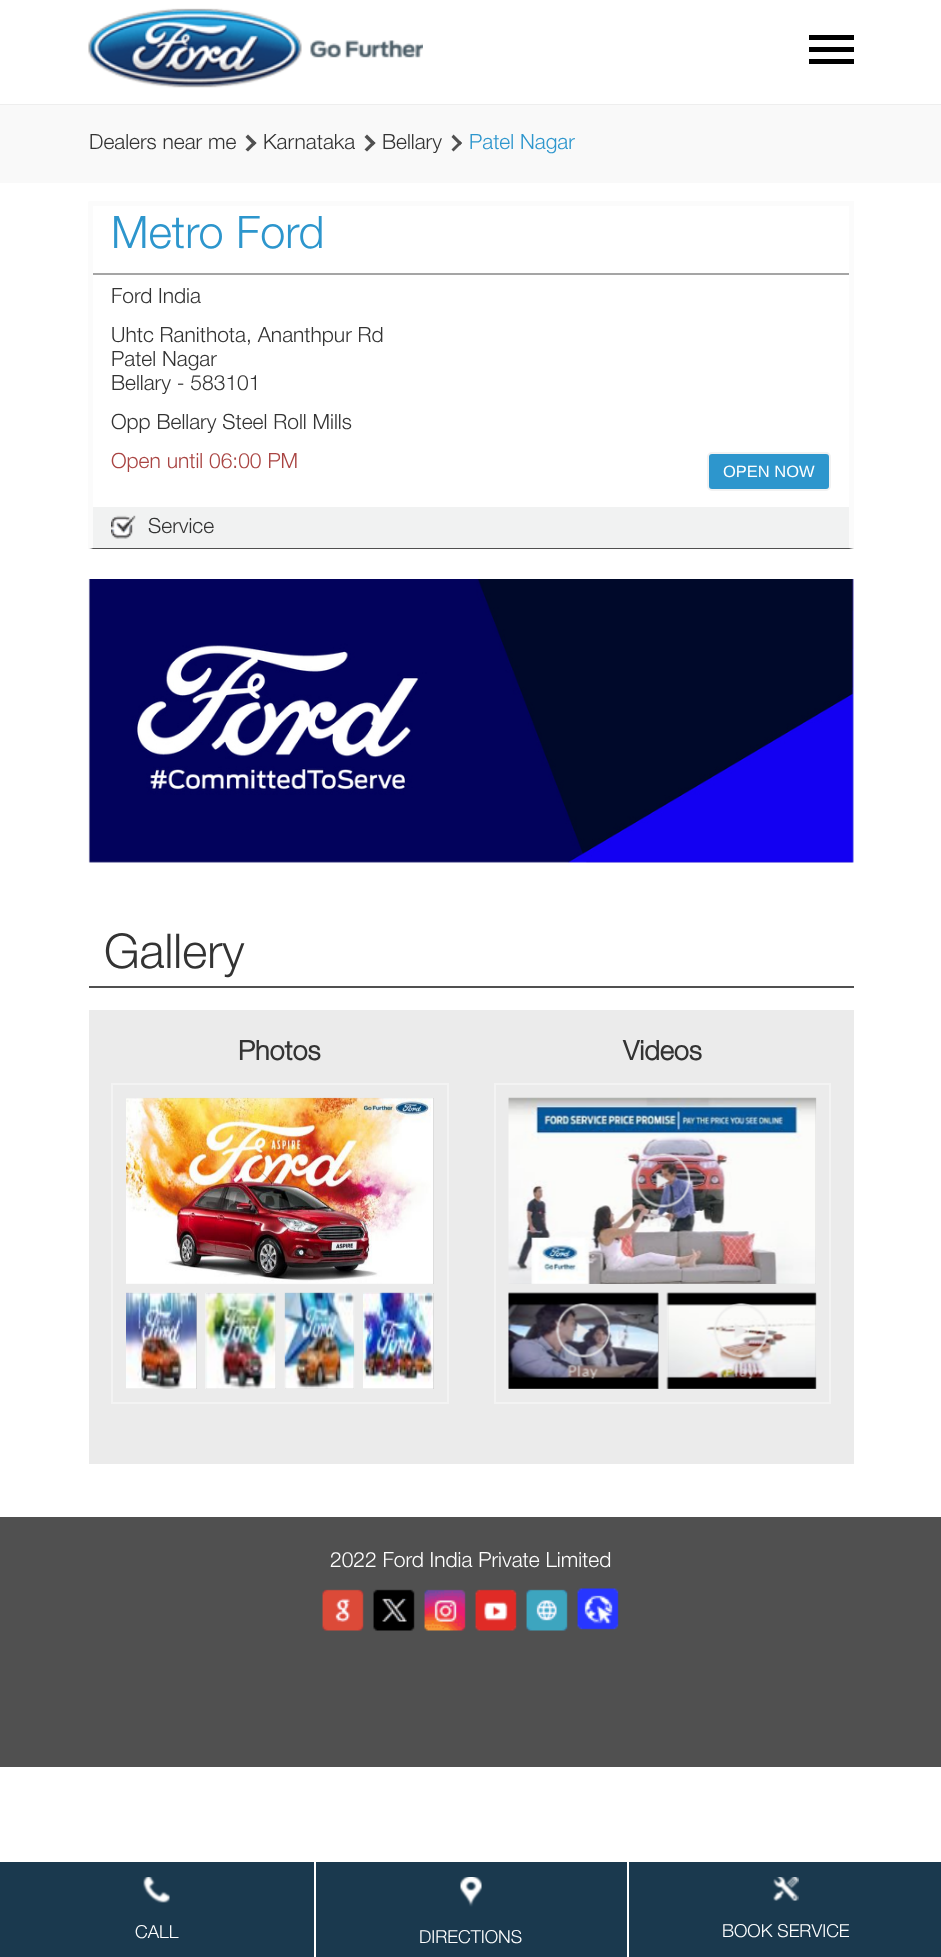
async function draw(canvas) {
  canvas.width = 941
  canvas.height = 1957
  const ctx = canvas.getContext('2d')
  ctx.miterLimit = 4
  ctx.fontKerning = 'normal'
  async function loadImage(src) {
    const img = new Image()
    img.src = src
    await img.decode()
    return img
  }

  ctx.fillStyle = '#fff'
  ctx.fillRect(0, 0, 941, 1957)
  ctx.fillStyle = '#eee'
  ctx.fillRect(0, 104, 941, 1)
  ctx.drawImage(await loadImage('image0.png'), 88, 8, 335, 80)
  ctx.fillStyle = '#000'
  ctx.fillRect(809, 47, 45, 5)
  ctx.fillRect(809, 35, 45, 5)
  ctx.fillRect(809, 59, 45, 5)
  ctx.fillStyle = '#f9f9f9'
  ctx.fillRect(0, 105, 941, 78)
  ctx.font = '300 21px Helvetica Neue'
  ctx.fillStyle = '#333'
  ctx.fillText('Dealers near me', 89, 149)
  ctx.fillStyle = '#505050'
  ctx.beginPath()
  ctx.moveTo(245.5, 137)
  ctx.lineTo(248, 134.5)
  ctx.lineTo(256.5, 143)
  ctx.lineTo(254, 145.5)
  ctx.closePath()
  ctx.fill()
  ctx.beginPath()
  ctx.moveTo(245.5, 149.5)
  ctx.lineTo(254, 141)
  ctx.lineTo(256.5, 143)
  ctx.lineTo(248, 151.5)
  ctx.closePath()
  ctx.fill()
  ctx.fillStyle = '#333'
  ctx.fillText('Karnataka', 263, 149)
  ctx.fillStyle = '#505050'
  ctx.beginPath()
  ctx.moveTo(364.5, 137)
  ctx.lineTo(367, 134.5)
  ctx.lineTo(375.5, 143)
  ctx.lineTo(373, 145.5)
  ctx.closePath()
  ctx.fill()
  ctx.beginPath()
  ctx.moveTo(364.5, 149.5)
  ctx.lineTo(373, 141)
  ctx.lineTo(375.5, 143)
  ctx.lineTo(367, 151.5)
  ctx.closePath()
  ctx.fill()
  ctx.fillStyle = '#333'
  ctx.fillText('Bellary', 382, 149)
  ctx.fillStyle = '#505050'
  ctx.beginPath()
  ctx.moveTo(451.5, 137)
  ctx.lineTo(453.5, 134.5)
  ctx.lineTo(462, 143)
  ctx.lineTo(460, 145.5)
  ctx.closePath()
  ctx.fill()
  ctx.beginPath()
  ctx.moveTo(451.5, 149.5)
  ctx.lineTo(460, 141)
  ctx.lineTo(462, 143)
  ctx.lineTo(453.5, 151.5)
  ctx.closePath()
  ctx.fill()
  ctx.fillStyle = '#2d96cd'
  ctx.fillText('Patel Nagar', 469, 149)
  ctx.fillStyle = '#fbfbfb'
  ctx.fillRect(89, 201, 765, 5)
  ctx.beginPath()
  ctx.moveTo(854, 201)
  ctx.lineTo(854, 549)
  ctx.lineTo(849, 548)
  ctx.lineTo(849, 206)
  ctx.closePath()
  ctx.fill()
  ctx.fillStyle = '#505050'
  ctx.beginPath()
  ctx.moveTo(854, 549)
  ctx.lineTo(88, 549)
  ctx.lineTo(93, 548)
  ctx.lineTo(849, 548)
  ctx.closePath()
  ctx.fill()
  ctx.fillStyle = '#fbfbfb'
  ctx.beginPath()
  ctx.moveTo(88, 549)
  ctx.lineTo(88, 201)
  ctx.lineTo(93, 206)
  ctx.lineTo(93, 548)
  ctx.closePath()
  ctx.fill()
  ctx.fillStyle = '#a5a5a5'
  ctx.fillRect(93, 273, 756, 2)
  ctx.font = '300 45px Helvetica Neue'
  ctx.fillStyle = '#2d96cd'
  ctx.fillText('Metro Ford', 111, 248)
  ctx.font = '300 21px Helvetica Neue'
  ctx.fillStyle = '#333'
  ctx.fillText('Ford India', 111, 303)
  ctx.fillText('Uhtc Ranithota, Ananthpur Rd', 111, 342)
  ctx.fillText('Patel Nagar', 111, 366)
  ctx.fillText('Bellary - 583101', 111, 390)
  ctx.fillText('Opp Bellary Steel Roll Mills', 111, 429)
  ctx.fillStyle = '#a94442'
  ctx.fillText('Open until 06:00 PM', 111, 468)
  ctx.fillStyle = '#2d96cd'
  ctx.beginPath()
  ctx.roundRect(708, 453, 122, 37, 4)
  ctx.fill()
  ctx.strokeStyle = '#f2f2f2'
  ctx.lineWidth = 2
  ctx.stroke()
  ctx.font = '16.5px Liberation Sans'
  ctx.fillStyle = '#fff'
  ctx.fillText('OPEN NOW', 723, 477)
  ctx.fillStyle = '#f1f2f2'
  ctx.fillRect(93, 507, 756, 41)
  ctx.drawImage(await loadImage('image1.png'), 111, 515, 25, 24)
  ctx.font = '300 21px Helvetica Neue'
  ctx.fillStyle = '#333'
  ctx.fillText('Service', 148, 533)
  ctx.drawImage(await loadImage('image2.png'), 88, 579, 766, 284)
  ctx.fillStyle = '#505050'
  ctx.fillRect(89, 986, 765, 2)
  ctx.font = '300 48px Helvetica Neue'
  ctx.fillStyle = '#333'
  ctx.fillText('Gallery', 104, 968)
  ctx.fillStyle = '#ebebeb'
  ctx.fillRect(89, 1010, 765, 454)
  ctx.font = 'bold 27px Helvetica Neue'
  ctx.fillStyle = '#333'
  ctx.fillText('Photos', 238, 1060)
  ctx.strokeStyle = '#f3f3f3'
  ctx.strokeRect(112, 1084, 336, 319)
  ctx.fillStyle = '#bbb'
  ctx.fillRect(126, 1098, 308, 186)
  ctx.drawImage(await loadImage('image3.png'), 126, 1097, 308, 187)
  ctx.fillRect(126, 1293, 71, 96)
  ctx.drawImage(await loadImage('image4.png'), 126, 1292, 71, 97)
  ctx.fillRect(206, 1293, 70, 96)
  ctx.drawImage(await loadImage('image5.png'), 205, 1292, 71, 97)
  ctx.fillRect(285, 1293, 69, 96)
  ctx.drawImage(await loadImage('image6.png'), 284, 1292, 72, 97)
  ctx.fillRect(363, 1293, 71, 96)
  ctx.drawImage(await loadImage('image7.png'), 363, 1292, 71, 97)
  ctx.fillStyle = '#333'
  ctx.fillText('Videos', 623, 1060)
  ctx.strokeRect(495, 1084, 335, 319)
  ctx.fillStyle = '#bbb'
  ctx.fillRect(509, 1098, 307, 186)
  ctx.drawImage(await loadImage('image8.png'), 508, 1097, 309, 187)
  ctx.drawImage(await loadImage('image9.png'), 635, 1153, 56, 76)
  ctx.fillRect(509, 1293, 150, 96)
  ctx.drawImage(await loadImage('image10.png'), 508, 1292, 151, 97)
  ctx.drawImage(await loadImage('image11.png'), 555, 1303, 56, 76)
  ctx.fillRect(668, 1293, 148, 96)
  ctx.drawImage(await loadImage('image12.png'), 666, 1292, 151, 97)
  ctx.drawImage(await loadImage('image13.png'), 713, 1303, 56, 76)
  ctx.fillStyle = '#505050'
  ctx.fillRect(0, 1517, 941, 250)
  ctx.font = '300 21px Helvetica Neue'
  ctx.fillStyle = '#fff'
  ctx.fillText('2022 Ford India Private Limited', 330, 1567)
  ctx.drawImage(await loadImage('image14.png'), 322, 1589, 42, 42)
  ctx.drawImage(await loadImage('image15.png'), 373, 1589, 42, 42)
  ctx.drawImage(await loadImage('image16.png'), 424, 1589, 42, 42)
  ctx.drawImage(await loadImage('image17.png'), 475, 1589, 42, 42)
  ctx.drawImage(await loadImage('image18.png'), 526, 1589, 42, 42)
  ctx.drawImage(await loadImage('image19.png'), 577, 1588, 42, 42)
  ctx.fillStyle = '#1a394e'
  ctx.fillRect(0, 1862, 941, 95)
  ctx.fillStyle = '#fff'
  ctx.fillRect(314, 1862, 2, 95)
  ctx.drawImage(await loadImage('image20.png'), 143, 1877, 27, 26)
  ctx.font = '300 18px Helvetica Neue'
  ctx.fillText('CALL', 135, 1938)
  ctx.fillRect(627, 1862, 2, 95)
  ctx.drawImage(await loadImage('image21.png'), 460, 1877, 22, 30)
  ctx.fillText('DIRECTIONS', 419, 1943)
  ctx.drawImage(await loadImage('image22.png'), 773, 1877, 26, 24)
  ctx.fillText('BOOK SERVICE', 722, 1937)
}

draw(document.querySelector('canvas'))
